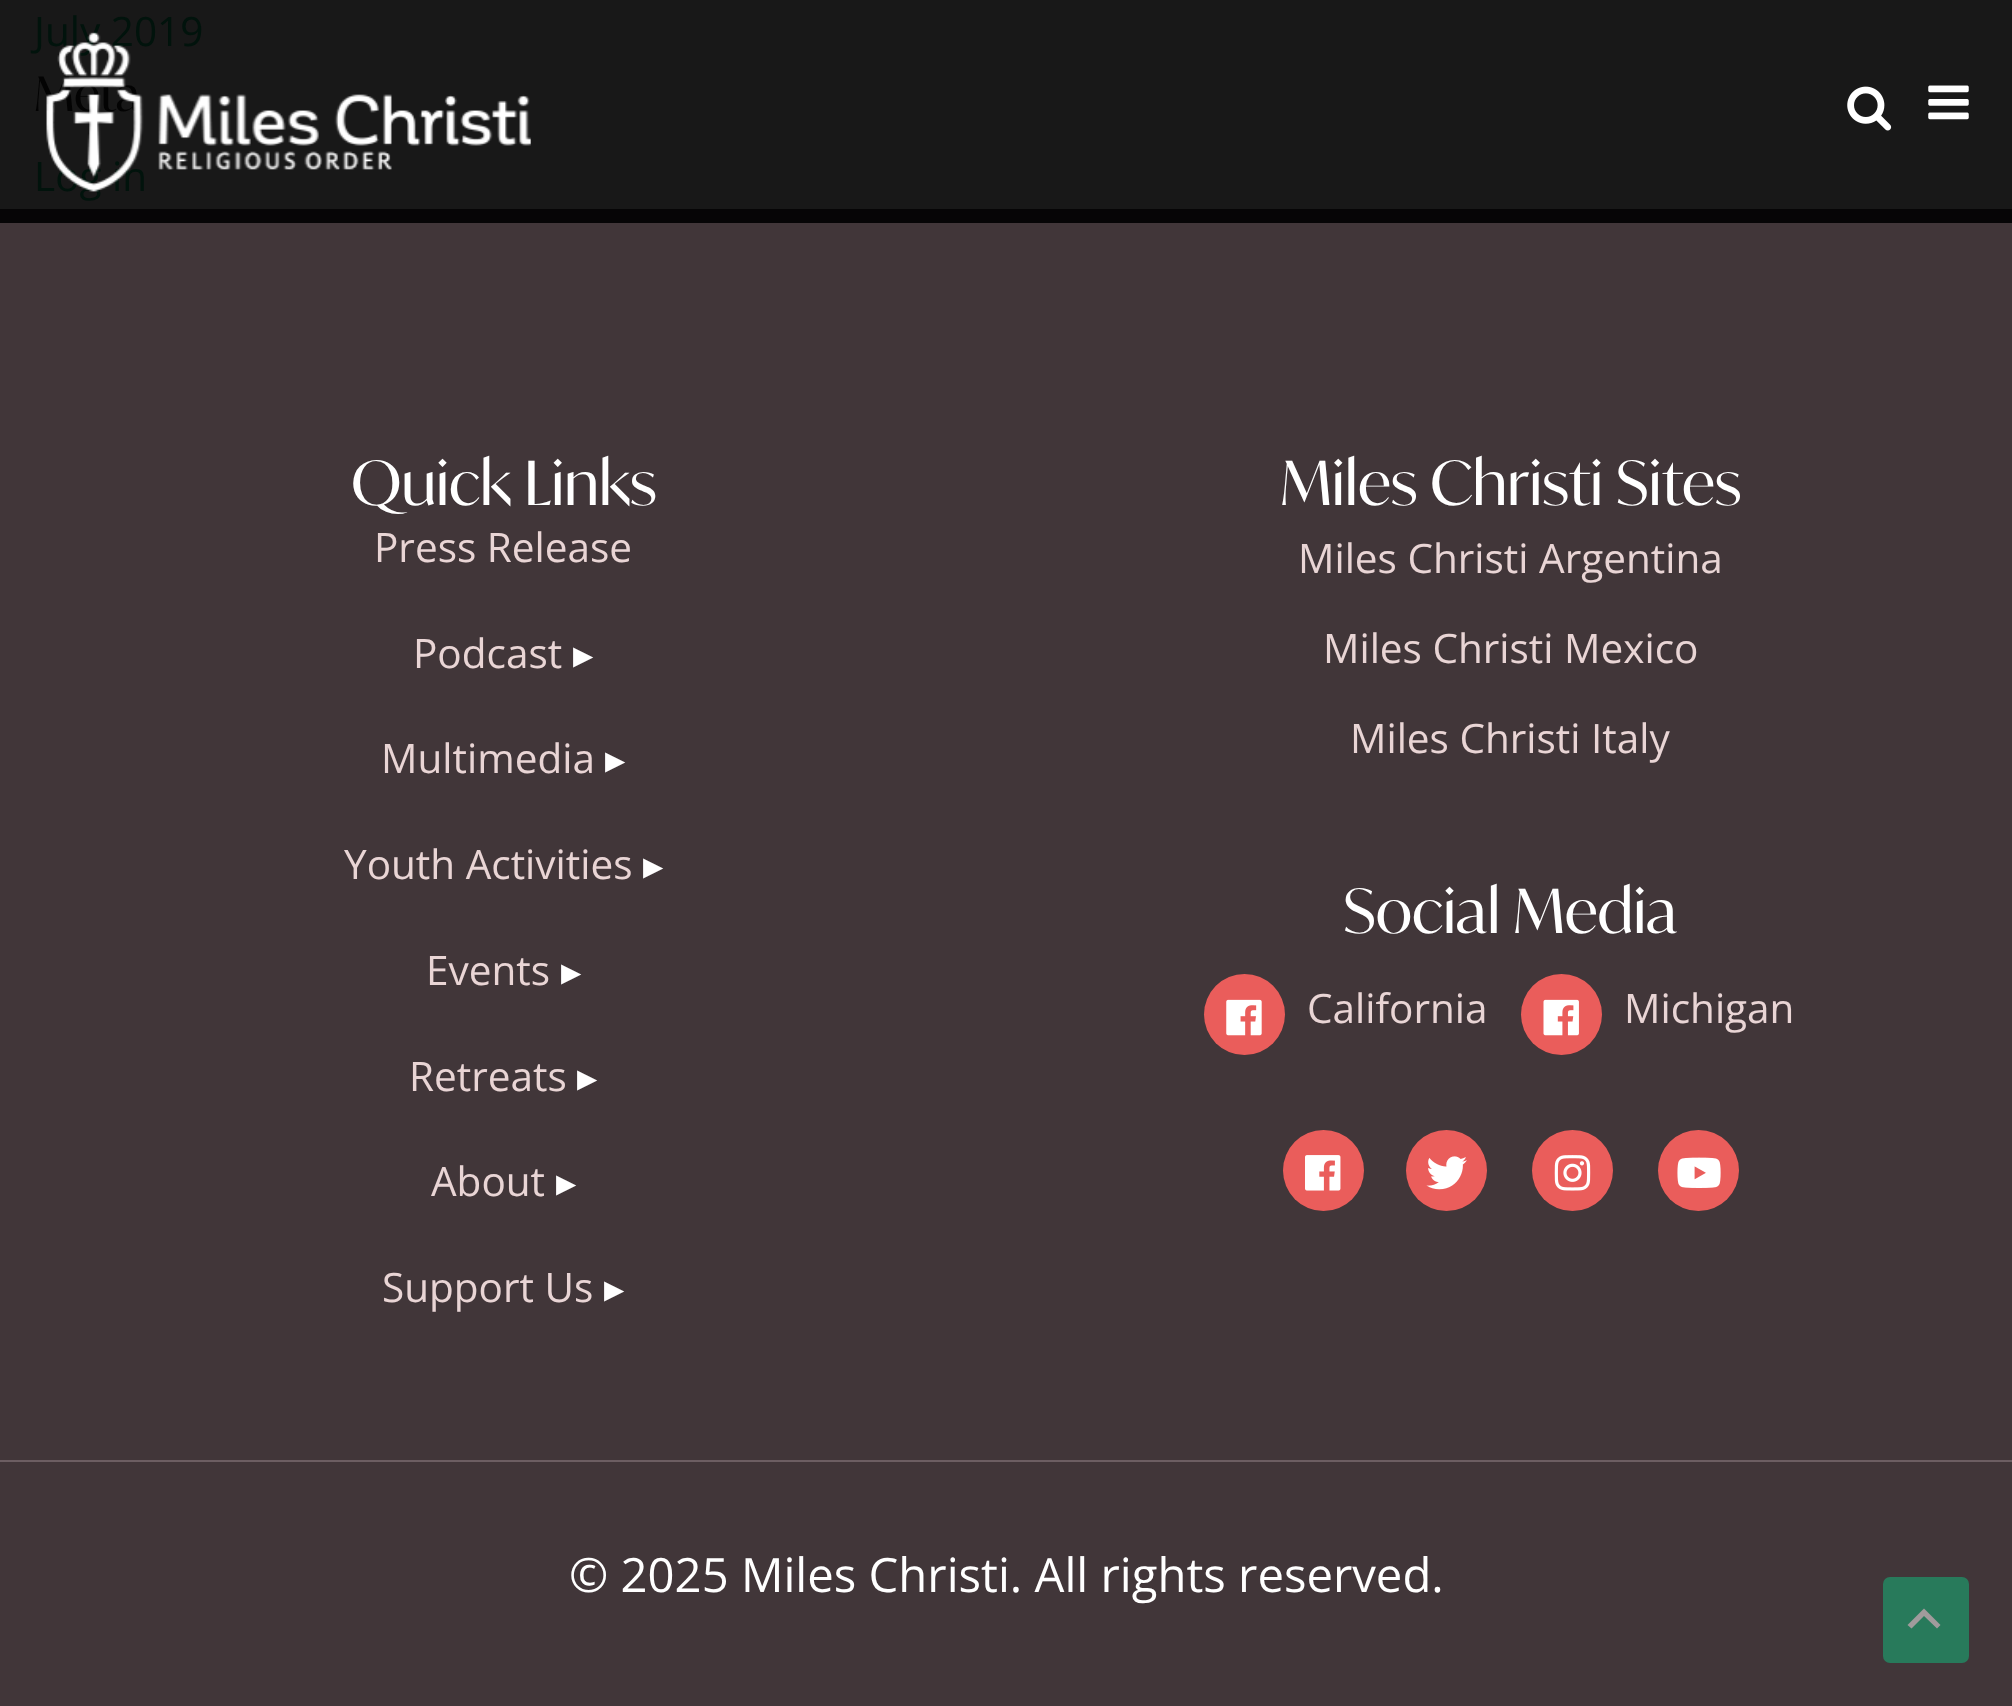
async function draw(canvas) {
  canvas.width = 2012
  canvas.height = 1706
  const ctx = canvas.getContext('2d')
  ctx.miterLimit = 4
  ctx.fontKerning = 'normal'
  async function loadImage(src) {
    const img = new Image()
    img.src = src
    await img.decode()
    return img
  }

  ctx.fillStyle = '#181818'
  ctx.fillRect(0, 0, 2012, 1706)
  ctx.font = '40.5px Open Sans'
  ctx.fillStyle = '#01130c'
  ctx.fillText('July 2019', 34, 46)
  ctx.font = '47.25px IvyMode'
  ctx.fillStyle = '#030303'
  ctx.fillText('Meta', 34, 111)
  ctx.font = '40.5px Open Sans'
  ctx.fillStyle = '#01130c'
  ctx.fillText('Log in', 34, 191)
  ctx.drawImage(await loadImage('image0.png'), 46, 32, 485, 160)
  ctx.drawImage(await loadImage('image1.png'), 1847, 86, 45, 45)
  ctx.drawImage(await loadImage('image2.png'), 1928, 85, 41, 35)
  ctx.fillStyle = '#413639'
  ctx.fillRect(0, 223, 2012, 1483)
  ctx.fillStyle = '#060506'
  ctx.fillRect(0, 209, 2012, 14)
  ctx.font = '60.75px IvyMode'
  ctx.fillStyle = '#fff'
  ctx.fillText('Quick Links', 351, 505)
  ctx.font = '40.5px Open Sans'
  ctx.fillStyle = '#e9d5d5'
  ctx.fillText('Press Release', 374, 562)
  ctx.fillText('Podcast', 413, 668)
  ctx.font = '40.5px DejaVu Sans'
  ctx.fillStyle = '#fff'
  ctx.fillText('▸', 573, 668)
  ctx.font = '40.5px Open Sans'
  ctx.fillStyle = '#e9d5d5'
  ctx.fillText('Multimedia', 381, 773)
  ctx.font = '40.5px DejaVu Sans'
  ctx.fillStyle = '#fff'
  ctx.fillText('▸', 605, 773)
  ctx.font = '40.5px Open Sans'
  ctx.fillStyle = '#e9d5d5'
  ctx.fillText('Youth Activities', 344, 879)
  ctx.font = '40.5px DejaVu Sans'
  ctx.fillStyle = '#fff'
  ctx.fillText('▸', 643, 879)
  ctx.font = '40.5px Open Sans'
  ctx.fillStyle = '#e9d5d5'
  ctx.fillText('Events', 426, 985)
  ctx.font = '40.5px DejaVu Sans'
  ctx.fillStyle = '#fff'
  ctx.fillText('▸', 561, 985)
  ctx.font = '40.5px Open Sans'
  ctx.fillStyle = '#e9d5d5'
  ctx.fillText('Retreats', 409, 1091)
  ctx.font = '40.5px DejaVu Sans'
  ctx.fillStyle = '#fff'
  ctx.fillText('▸', 577, 1091)
  ctx.font = '40.5px Open Sans'
  ctx.fillStyle = '#e9d5d5'
  ctx.fillText('About', 431, 1196)
  ctx.font = '40.5px DejaVu Sans'
  ctx.fillStyle = '#fff'
  ctx.fillText('▸', 556, 1196)
  ctx.font = '40.5px Open Sans'
  ctx.fillStyle = '#e9d5d5'
  ctx.fillText('Support Us', 382, 1302)
  ctx.font = '40.5px DejaVu Sans'
  ctx.fillStyle = '#fff'
  ctx.fillText('▸', 604, 1302)
  ctx.font = '60.75px IvyMode'
  ctx.fillText('Miles Christi Sites', 1280, 505)
  ctx.font = '40.5px Open Sans'
  ctx.fillStyle = '#e9d5d5'
  ctx.fillText('Miles Christi Argentina', 1298, 573)
  ctx.fillText('Miles Christi Mexico', 1323, 663)
  ctx.fillText('Miles Christi Italy', 1350, 753)
  ctx.font = '60.75px IvyMode'
  ctx.fillStyle = '#fff'
  ctx.fillText('Social Media', 1343, 933)
  ctx.fillStyle = '#ea5d5b'
  ctx.beginPath()
  ctx.arc(1244.5, 1014.5, 40.5, 0, 2 * Math.PI)
  ctx.fill()
  ctx.drawImage(await loadImage('image3.png'), 1226, 999, 36, 37)
  ctx.font = '40.5px Open Sans'
  ctx.fillStyle = '#e9d5d5'
  ctx.fillText('California', 1307, 1023)
  ctx.fillStyle = '#ea5d5b'
  ctx.beginPath()
  ctx.arc(1561.5, 1014.5, 40.5, 0, 2 * Math.PI)
  ctx.fill()
  ctx.drawImage(await loadImage('image4.png'), 1543, 999, 36, 37)
  ctx.fillStyle = '#e9d5d5'
  ctx.fillText('Michigan', 1624, 1023)
  ctx.fillStyle = '#ea5d5b'
  ctx.beginPath()
  ctx.arc(1323.5, 1170.5, 40.5, 0, 2 * Math.PI)
  ctx.fill()
  ctx.drawImage(await loadImage('image5.png'), 1305, 1155, 36, 36)
  ctx.beginPath()
  ctx.arc(1446.5, 1170.5, 40.5, 0, 2 * Math.PI)
  ctx.fill()
  ctx.drawImage(await loadImage('image6.png'), 1426, 1156, 41, 34)
  ctx.beginPath()
  ctx.arc(1572.5, 1170.5, 40.5, 0, 2 * Math.PI)
  ctx.fill()
  ctx.drawImage(await loadImage('image7.png'), 1554, 1155, 37, 36)
  ctx.beginPath()
  ctx.arc(1698.5, 1170.5, 40.5, 0, 2 * Math.PI)
  ctx.fill()
  ctx.drawImage(await loadImage('image8.png'), 1677, 1157, 44, 31)
  ctx.fillStyle = '#287a5b'
  ctx.beginPath()
  ctx.roundRect(1883, 1577, 86, 86, 7)
  ctx.fill()
  ctx.fillStyle = '#a09b9c'
  ctx.beginPath()
  ctx.moveTo(1907.5, 1625)
  ctx.lineTo(1924, 1608.5)
  ctx.lineTo(1940.5, 1625)
  ctx.lineTo(1937, 1628.5)
  ctx.lineTo(1924, 1616)
  ctx.lineTo(1911.5, 1628.5)
  ctx.closePath()
  ctx.fill()
  ctx.fillStyle = '#6c5e62'
  ctx.fillRect(0, 1460, 2012, 2)
  ctx.font = '47.25px Open Sans'
  ctx.fillStyle = '#fff'
  ctx.fillText('© 2025 Miles Christi. All rights reserved.', 569, 1592)
}

draw(document.querySelector('canvas'))
